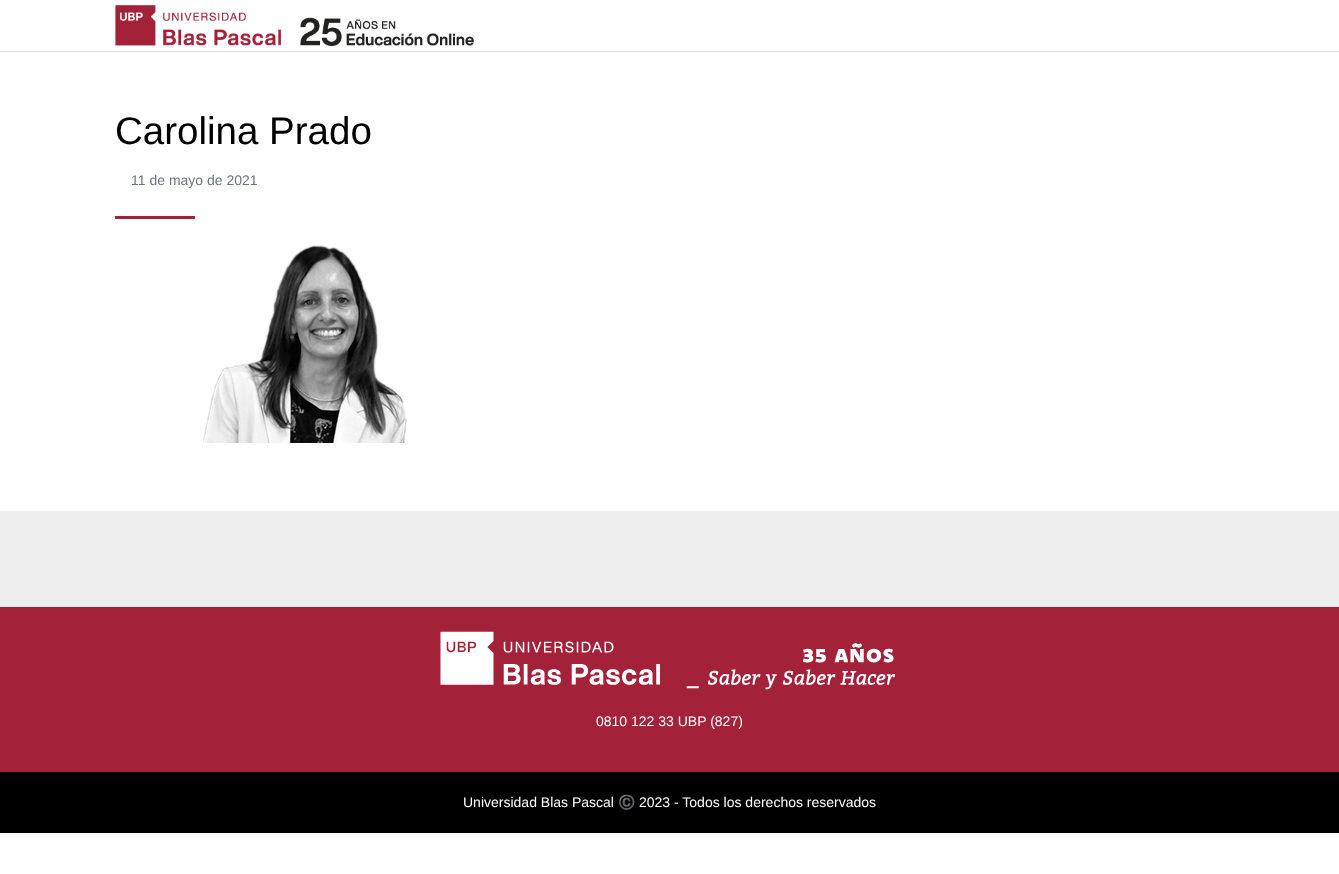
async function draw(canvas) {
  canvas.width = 1339
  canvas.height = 874
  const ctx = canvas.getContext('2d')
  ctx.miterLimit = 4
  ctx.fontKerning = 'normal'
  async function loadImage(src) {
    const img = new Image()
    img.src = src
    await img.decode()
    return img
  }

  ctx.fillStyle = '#fff'
  ctx.fillRect(0, 0, 1339, 874)
  ctx.fillStyle = '#dee2e6'
  ctx.fillRect(0, 51, 1339, 1)
  ctx.drawImage(await loadImage('image0.png'), 115, 5, 360, 41)
  ctx.font = '38.5px Liberation Sans'
  ctx.fillStyle = '#000'
  ctx.fillText('Carolina Prado', 115, 144)
  ctx.font = '14px Liberation Sans'
  ctx.fillStyle = '#6c757d'
  ctx.fillText('11 de mayo de 2021', 131, 185)
  ctx.fillStyle = '#a3223a'
  ctx.fillRect(115, 216, 80, 3)
  ctx.drawImage(await loadImage('image1.png'), 203, 245, 204, 198)
  ctx.fillStyle = '#eee'
  ctx.fillRect(0, 511, 1339, 96)
  ctx.fillStyle = '#a3223a'
  ctx.fillRect(0, 607, 1339, 165)
  ctx.drawImage(await loadImage('image2.png'), 440, 631, 455, 59)
  ctx.fillStyle = '#fff'
  ctx.fillText('0810 122 33 UBP (827)', 596, 726)
  ctx.fillStyle = '#000'
  ctx.fillRect(0, 772, 1339, 61)
  ctx.fillStyle = '#fff'
  ctx.fillText('Universidad Blas Pascal', 463, 807)
  ctx.font = '14px Noto Color Emoji'
  ctx.fillText('©️', 618, 807)
  ctx.font = '14px Liberation Sans'
  ctx.fillText('2023 - Todos los derechos reservados', 639, 807)
}

draw(document.querySelector('canvas'))
